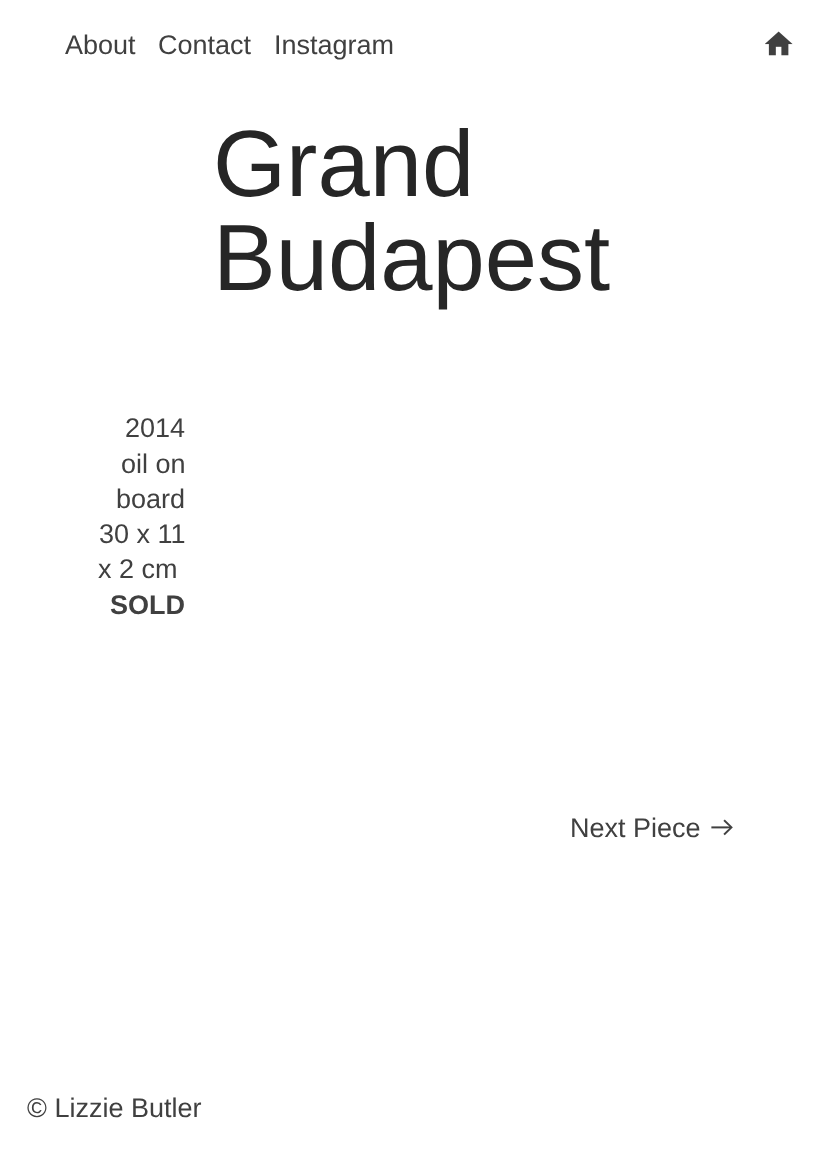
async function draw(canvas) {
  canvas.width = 824
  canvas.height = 1160
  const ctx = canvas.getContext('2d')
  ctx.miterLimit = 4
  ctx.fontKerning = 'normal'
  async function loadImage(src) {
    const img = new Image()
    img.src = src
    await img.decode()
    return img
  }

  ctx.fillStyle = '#fff'
  ctx.fillRect(0, 0, 824, 1160)
  ctx.font = '27px Liberation Sans'
  ctx.fillStyle = '#404040'
  ctx.fillText('About', 65, 54)
  ctx.fillText('Contact', 158, 54)
  ctx.fillText('Instagram', 274, 54)
  ctx.drawImage(await loadImage('image0.png'), 765, 31, 28, 25)
  ctx.font = '94px Liberation Sans'
  ctx.fillStyle = '#262626'
  ctx.fillText('Grand', 213, 196)
  ctx.fillText('Budapest', 213, 290)
  ctx.font = '27px Liberation Sans'
  ctx.fillStyle = '#404040'
  ctx.fillText('2014', 125, 437)
  ctx.fillText('oil on', 121, 473)
  ctx.fillText('board', 116, 508)
  ctx.fillText('30 x 11', 99, 543)
  ctx.fillText('x 2 cm', 98, 578)
  ctx.font = 'bold 27px Liberation Sans'
  ctx.fillText('SOLD', 110, 614)
  ctx.font = '27px Liberation Sans'
  ctx.fillText('Next Piece', 570, 837)
  ctx.drawImage(await loadImage('image1.png'), 711, 819, 22, 17)
  ctx.fillText('© Lizzie Butler', 27, 1117)
}

draw(document.querySelector('canvas'))
